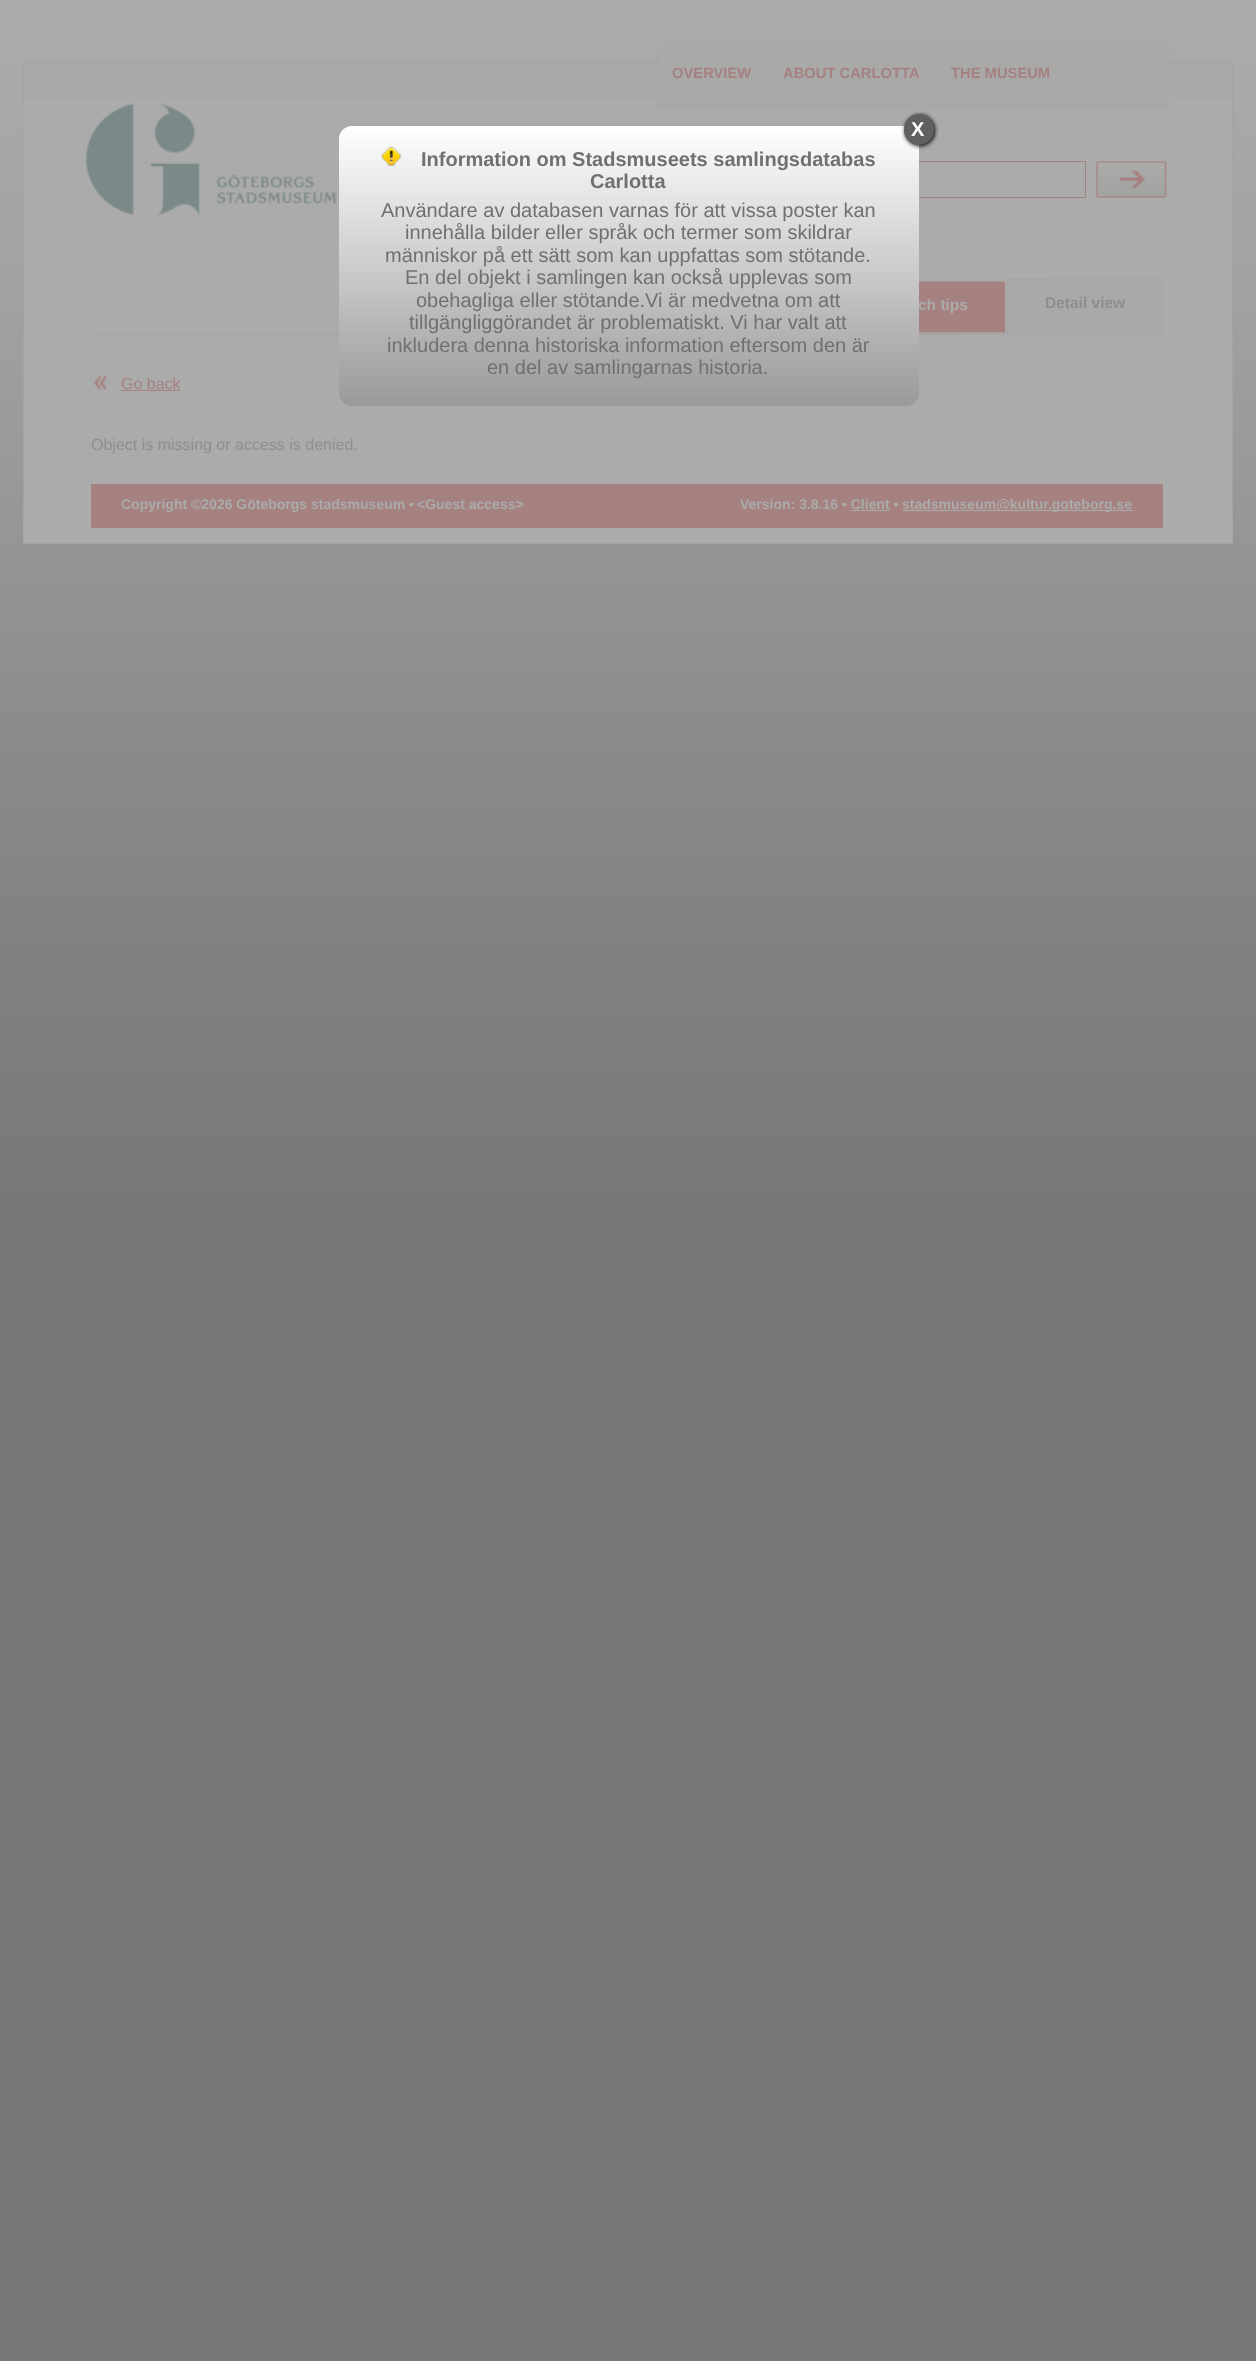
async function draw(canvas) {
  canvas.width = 1256
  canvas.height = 2361
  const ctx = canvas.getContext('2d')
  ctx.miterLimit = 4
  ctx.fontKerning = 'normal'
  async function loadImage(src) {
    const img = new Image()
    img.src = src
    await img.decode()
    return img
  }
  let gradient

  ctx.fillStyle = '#787878'
  ctx.fillRect(0, 0, 1256, 2361)
  ctx.drawImage(await loadImage('image0.png'), 0, 0, 1256, 1191)
  ctx.drawImage(await loadImage('image1.png'), 1233, 63, 2, 481)
  ctx.fillStyle = '#ababab'
  ctx.fillRect(24, 99, 1208, 444)
  ctx.strokeStyle = '#a4a4a4'
  ctx.strokeRect(23.5, 63.5, 1209, 480)
  ctx.drawImage(await loadImage('image2.png'), 656, 42, 513, 67)
  ctx.drawImage(await loadImage('image3.png'), 1128, 42, 41, 65)
  ctx.font = 'bold 14.75px Liberation Sans'
  ctx.fillStyle = '#a58180'
  ctx.fillText('OVERVIEW', 672, 78)
  ctx.fillText('ABOUT CARLOTTA', 783, 78)
  ctx.fillText('THE MUSEUM', 951, 78)
  ctx.drawImage(await loadImage('image4.png'), 86, 103, 251, 112)
  ctx.strokeStyle = '#a58180'
  ctx.strokeRect(793.5, 161.5, 292, 36)
  ctx.drawImage(await loadImage('image5.png'), 1096, 161, 71, 37)
  ctx.drawImage(await loadImage('image6.png'), 91, 332, 1072, 3)
  ctx.drawImage(await loadImage('image7.png'), 919, 281, 86, 52)
  ctx.font = 'bold 15.5px Liberation Sans'
  ctx.fillStyle = '#ababab'
  ctx.fillText('ch tips', 918, 310)
  ctx.drawImage(await loadImage('image8.png'), 1006, 278, 39, 57)
  ctx.drawImage(await loadImage('image9.png'), 1045, 279, 118, 56)
  ctx.fillStyle = '#8e8e8e'
  ctx.fillText('Detail view', 1045, 308)
  ctx.drawImage(await loadImage('image10.png'), 93, 376, 15, 15)
  ctx.font = '16px Liberation Sans'
  ctx.fillStyle = '#a58180'
  ctx.fillText('Go back', 121, 389)
  ctx.fillRect(121, 390, 59, 1)
  ctx.fillStyle = '#8e8e8e'
  ctx.fillText('Object is missing or access is denied.', 91, 450)
  ctx.fillStyle = '#a58180'
  ctx.fillRect(91, 484, 1072, 44)
  ctx.font = 'bold 14px Liberation Sans'
  ctx.fillStyle = '#ababab'
  ctx.fillText('Copyright ©2026 Göteborgs stadsmuseum •', 121, 509)
  ctx.fillText('<Guest access>', 417, 509)
  ctx.fillText('Version: 3.8.16 • Client •', 740, 509)
  ctx.fillRect(903, 510, 230, 1)
  ctx.fillText('stadsmuseum@kultur.goteborg.se', 902, 509)
  ctx.fillRect(851, 510, 39, 1)
  gradient = ctx.createLinearGradient(629, 126, 629, 406)
  gradient.addColorStop(0, '#fff')
  gradient.addColorStop(1, '#999')
  ctx.fillStyle = gradient
  ctx.beginPath()
  ctx.roundRect(339, 126, 580, 280, 13)
  ctx.fill()
  ctx.fillStyle = '#000'
  ctx.filter = 'blur(2px)'
  ctx.beginPath()
  ctx.roundRect(905, 115, 30, 31, 15)
  ctx.fill()
  ctx.filter = 'none'
  ctx.fillStyle = '#606061'
  ctx.beginPath()
  ctx.roundRect(904, 114, 30, 31, 15)
  ctx.fill()
  ctx.font = 'bold 20px Liberation Sans'
  ctx.fillStyle = '#fff'
  ctx.fillText('X', 911, 136)
  ctx.drawImage(await loadImage('image11.png'), 381, 146, 21, 20)
  ctx.fillStyle = '#707070'
  ctx.fillText('Information om Stadsmuseets samlingsdatabas', 421, 166)
  ctx.fillText('Carlotta', 590, 188)
  ctx.font = '20px Liberation Sans'
  ctx.fillText('Användare av databasen varnas för att vissa poster kan', 381, 217)
  ctx.fillText('innehålla bilder eller språk och termer som skildrar', 405, 239)
  ctx.fillText('människor på ett sätt som kan uppfattas som stötande.', 385, 262)
  ctx.fillText('En del objekt i samlingen kan också upplevas som', 405, 284)
  ctx.fillText('obehagliga eller stötande.Vi är medvetna om att', 416, 307)
  ctx.fillText('tillgängliggörandet är problematiskt. Vi har valt att', 409, 329)
  ctx.fillText('inkludera denna historiska information eftersom den är', 387, 352)
  ctx.fillText('en del av samlingarnas historia.', 487, 374)
}

draw(document.querySelector('canvas'))
